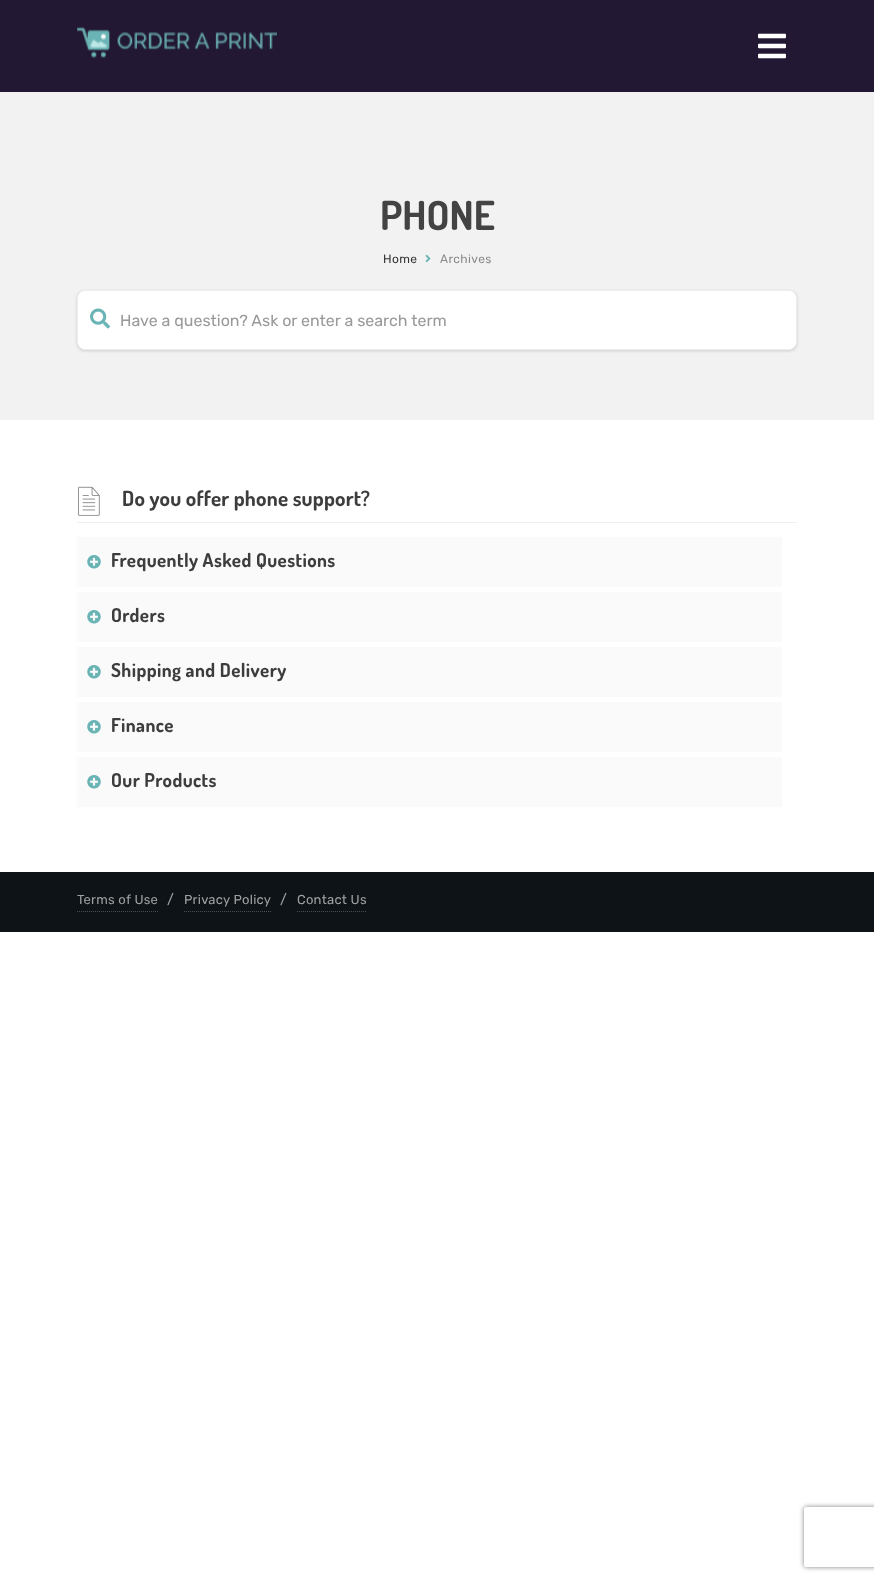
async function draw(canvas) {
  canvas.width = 874
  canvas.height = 1581
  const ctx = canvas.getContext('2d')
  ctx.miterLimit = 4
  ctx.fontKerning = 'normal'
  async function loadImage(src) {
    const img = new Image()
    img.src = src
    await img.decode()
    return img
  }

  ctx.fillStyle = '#fff'
  ctx.fillRect(0, 0, 874, 1581)
  ctx.fillStyle = '#231834'
  ctx.fillRect(0, 0, 874, 92)
  ctx.drawImage(await loadImage('image0.png'), 77, 27, 200, 31)
  ctx.drawImage(await loadImage('image1.png'), 758, 33, 28, 26)
  ctx.fillStyle = '#f3f2f2'
  ctx.fillRect(0, 92, 874, 328)
  ctx.font = 'bold 40px Dosis'
  ctx.fillStyle = '#444343'
  ctx.fillText('PHONE', 380, 230)
  ctx.letterSpacing = '0.4px'
  ctx.font = '300 12px Rubik'
  ctx.fillStyle = '#333'
  ctx.fillText('Home', 383, 263)
  ctx.drawImage(await loadImage('image2.png'), 425, 254, 6, 9)
  ctx.fillStyle = '#8a8989'
  ctx.fillText('Archives', 440, 263)
  ctx.fillStyle = '#00000026'
  ctx.filter = 'blur(1.5px)'
  ctx.beginPath()
  ctx.roundRect(77, 291, 720, 60, 8)
  ctx.fill()
  ctx.filter = 'none'
  ctx.fillStyle = '#fff'
  ctx.beginPath()
  ctx.roundRect(77.5, 290.5, 719, 59, 7.5)
  ctx.fill()
  ctx.strokeStyle = '#ededed'
  ctx.stroke()
  ctx.drawImage(await loadImage('image3.png'), 90, 308, 20, 21)
  ctx.letterSpacing = '0px'
  ctx.font = '300 16px Rubik'
  ctx.fillStyle = '#999'
  ctx.fillText('Have a question? Ask or enter a search term', 120, 326)
  ctx.fillStyle = '#efefef'
  ctx.fillRect(77, 522, 720, 1)
  ctx.drawImage(await loadImage('image4.png'), 78, 486, 22, 30)
  ctx.letterSpacing = '0.2px'
  ctx.font = 'bold 21px Dosis'
  ctx.fillStyle = '#3d3d3d'
  ctx.fillText('Do you offer phone support?', 122, 506)
  ctx.fillStyle = '#fafafa'
  ctx.fillRect(77, 537, 705, 50)
  ctx.drawImage(await loadImage('image5.png'), 87, 555, 14, 14)
  ctx.letterSpacing = '0.4px'
  ctx.font = 'bold 19px Dosis'
  ctx.fillStyle = '#3d3d3d'
  ctx.fillText('Frequently Asked Questions', 111, 567)
  ctx.fillStyle = '#fafafa'
  ctx.fillRect(77, 592, 705, 50)
  ctx.drawImage(await loadImage('image5.png'), 87, 610, 14, 14)
  ctx.fillStyle = '#3d3d3d'
  ctx.fillText('Orders', 111, 622)
  ctx.fillStyle = '#fafafa'
  ctx.fillRect(77, 647, 705, 50)
  ctx.drawImage(await loadImage('image5.png'), 87, 665, 14, 14)
  ctx.fillStyle = '#3d3d3d'
  ctx.fillText('Shipping and Delivery', 111, 677)
  ctx.fillStyle = '#fafafa'
  ctx.fillRect(77, 702, 705, 50)
  ctx.drawImage(await loadImage('image5.png'), 87, 720, 14, 14)
  ctx.fillStyle = '#3d3d3d'
  ctx.fillText('Finance', 111, 732)
  ctx.fillStyle = '#fafafa'
  ctx.fillRect(77, 757, 705, 50)
  ctx.drawImage(await loadImage('image5.png'), 87, 775, 14, 14)
  ctx.fillStyle = '#3d3d3d'
  ctx.fillText('Our Products', 111, 787)
  ctx.fillStyle = '#0d1317'
  ctx.fillRect(0, 872, 874, 60)
  ctx.beginPath()
  ctx.moveTo(77, 911.5)
  ctx.lineTo(159, 911.5)
  ctx.strokeStyle = '#4a4e51'
  ctx.setLineDash([1, 1])
  ctx.stroke()
  ctx.letterSpacing = '0.25px'
  ctx.font = '300 13px Rubik'
  ctx.fillStyle = '#a0a0a0'
  ctx.fillText('Terms of Use', 77, 904)
  ctx.font = '300 14px Rubik'
  ctx.fillText('/', 167, 904)
  ctx.beginPath()
  ctx.moveTo(184, 911.5)
  ctx.lineTo(272, 911.5)
  ctx.stroke()
  ctx.font = '300 13px Rubik'
  ctx.fillText('Privacy Policy', 184, 904)
  ctx.font = '300 14px Rubik'
  ctx.fillText('/', 280, 904)
  ctx.beginPath()
  ctx.moveTo(297, 911.5)
  ctx.lineTo(367, 911.5)
  ctx.stroke()
  ctx.font = '300 13px Rubik'
  ctx.fillText('Contact Us', 297, 904)
  ctx.save()
  ctx.beginPath()
  ctx.moveTo(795, 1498)
  ctx.lineTo(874, 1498)
  ctx.lineTo(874, 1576)
  ctx.lineTo(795, 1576)
  ctx.closePath()
  ctx.moveTo(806, 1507)
  ctx.lineTo(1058, 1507)
  ctx.bezierCurveTo(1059, 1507, 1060, 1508, 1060, 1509)
  ctx.lineTo(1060, 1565)
  ctx.bezierCurveTo(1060, 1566, 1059, 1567, 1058, 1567)
  ctx.lineTo(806, 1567)
  ctx.bezierCurveTo(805, 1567, 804, 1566, 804, 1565)
  ctx.lineTo(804, 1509)
  ctx.bezierCurveTo(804, 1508, 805, 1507, 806, 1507)
  ctx.closePath()
  ctx.clip('evenodd')
  ctx.fillStyle = '#808080'
  ctx.filter = 'blur(2.5px)'
  ctx.beginPath()
  ctx.roundRect(804, 1507, 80, 60, 2)
  ctx.fill()
  ctx.filter = 'none'
  ctx.restore()
}

draw(document.querySelector('canvas'))
